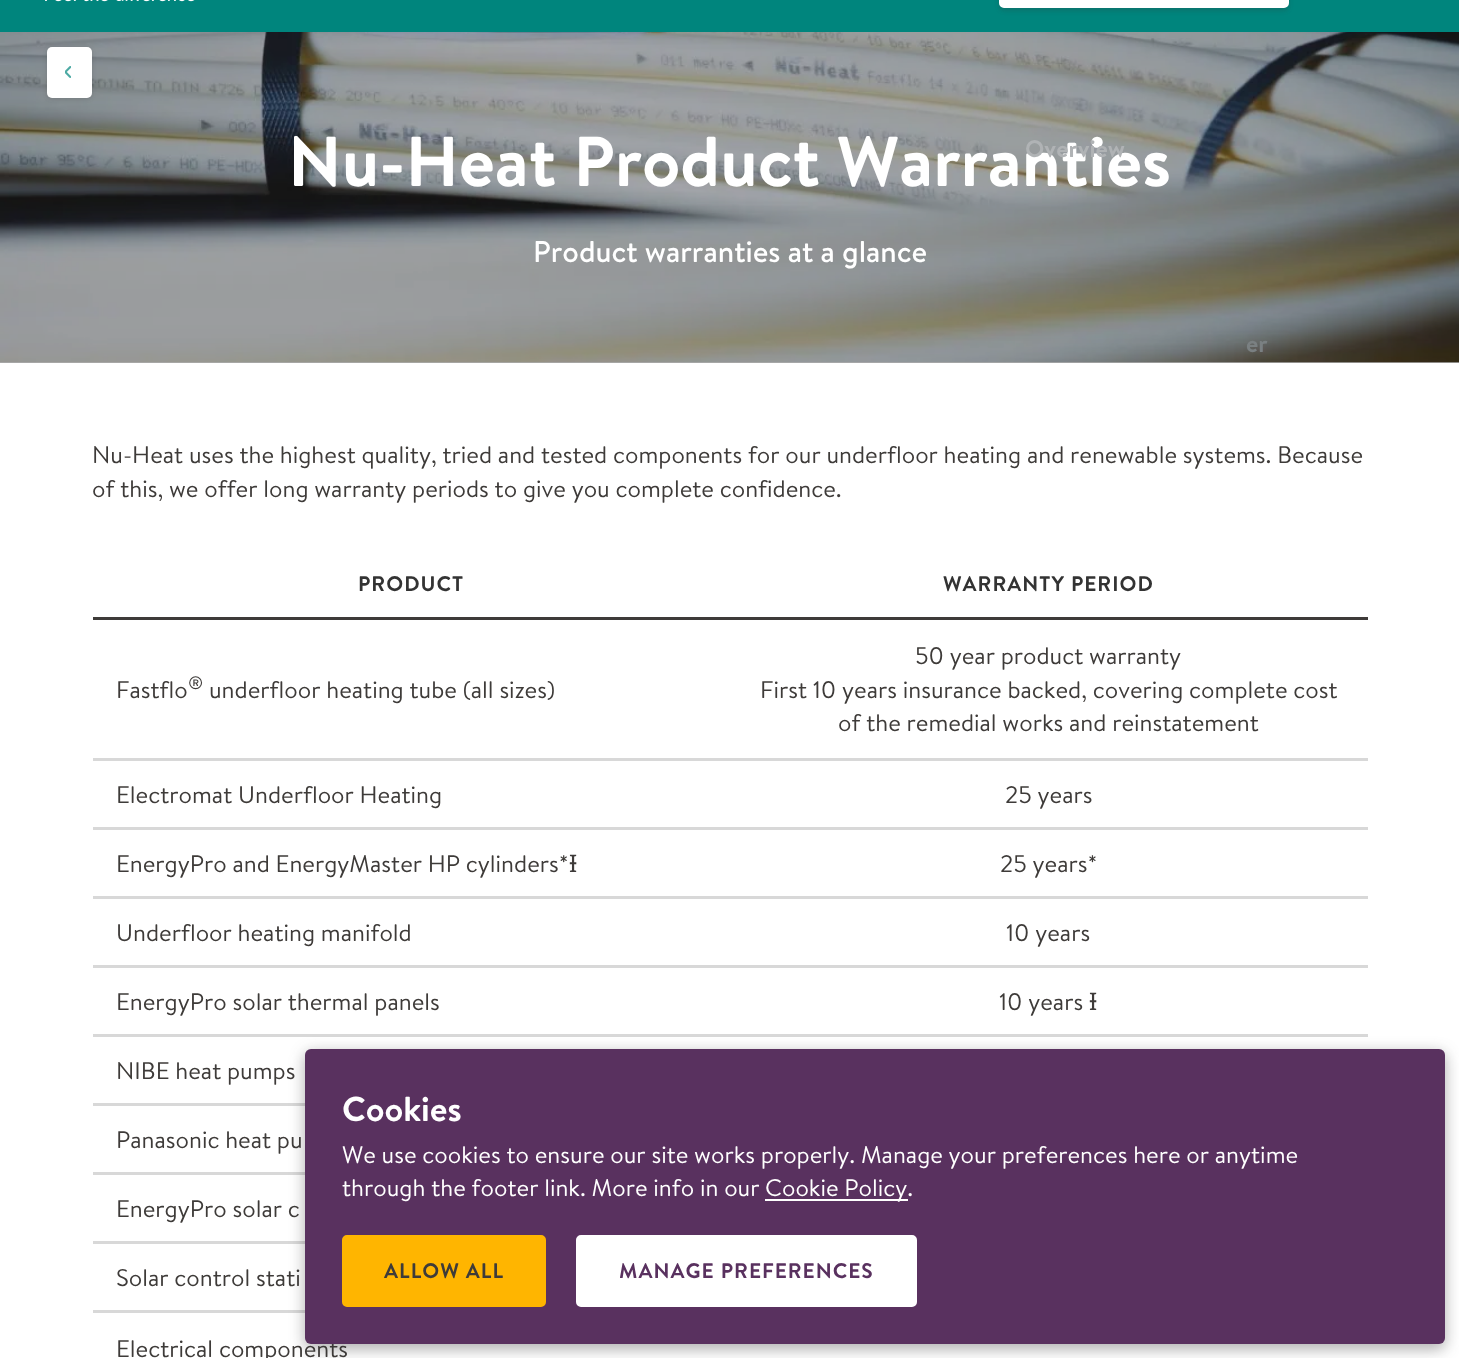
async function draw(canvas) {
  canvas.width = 1459
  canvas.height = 1358
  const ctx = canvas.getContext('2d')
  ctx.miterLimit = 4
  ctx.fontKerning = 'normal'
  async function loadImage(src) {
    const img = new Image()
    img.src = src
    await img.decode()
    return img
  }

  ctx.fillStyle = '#fff'
  ctx.fillRect(0, 0, 1459, 1358)
  ctx.fillStyle = '#adadad'
  ctx.fillRect(0, 362, 1459, 1)
  ctx.fillStyle = '#00857d'
  ctx.fillRect(0, 0, 1459, 32)
  ctx.drawImage(await loadImage('image0.png'), 45, 0, 150, 2)
  ctx.fillStyle = '#33333333'
  ctx.filter = 'blur(2px)'
  ctx.beginPath()
  ctx.roundRect(999, -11, 290, 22, 5)
  ctx.fill()
  ctx.filter = 'none'
  ctx.fillStyle = '#fff'
  ctx.beginPath()
  ctx.roundRect(1000.5, -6.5, 287, 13, 3.5)
  ctx.fill()
  ctx.strokeStyle = '#fff'
  ctx.lineWidth = 3
  ctx.stroke()
  ctx.drawImage(await loadImage('image2.png'), 0, 32, 1459, 331)
  ctx.fillStyle = '#33333333'
  ctx.filter = 'blur(2px)'
  ctx.beginPath()
  ctx.roundRect(47, 48, 45, 51, 5)
  ctx.fill()
  ctx.filter = 'none'
  ctx.fillStyle = '#fff'
  ctx.beginPath()
  ctx.roundRect(47, 47, 45, 51, 5)
  ctx.fill()
  ctx.drawImage(await loadImage('image1.png'), 65, 66, 6, 12)
  ctx.font = 'bold 70.5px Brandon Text'
  ctx.fillText('Nu-Heat Product Warranties', 288, 186)
  ctx.font = '500 30px Brandon Text'
  ctx.fillText('Product warranties at a glance', 533, 262)
  ctx.font = 'bold 24px Brandon Text'
  ctx.fillStyle = '#b0b3b5'
  ctx.fillText('Overview', 1025, 157)
  ctx.fillStyle = '#7a8082'
  ctx.fillText('er', 1246, 352)
  ctx.font = '24px Brandon Text'
  ctx.fillStyle = '#3e3b39'
  ctx.fillText('Nu-Heat uses the highest quality, tried and tested components for our underfloor heating and renewable systems. Because', 92, 463)
  ctx.fillText('of this, we offer long warranty periods to give you complete confidence.', 92, 497)
  ctx.fillRect(93, 617, 1275, 3)
  ctx.letterSpacing = '1px'
  ctx.font = 'bold 21px Brandon Text'
  ctx.fillStyle = '#333'
  ctx.fillText('PRODUCT', 358, 591)
  ctx.fillText('WARRANTY PERIOD', 943, 591)
  ctx.fillStyle = '#d8d8d8'
  ctx.fillRect(93, 758, 1275, 3)
  ctx.letterSpacing = '0px'
  ctx.font = '24px Brandon Text'
  ctx.fillStyle = '#3e3b39'
  ctx.fillText('Fastflo', 116, 698)
  ctx.font = '18px Brandon Text'
  ctx.fillText('®', 188, 689)
  ctx.font = '24px Brandon Text'
  ctx.fillText('underfloor heating tube (all sizes)', 209, 698)
  ctx.fillText('50 year product warranty', 915, 664)
  ctx.fillText('First 10 years insurance backed, covering complete cost', 760, 698)
  ctx.fillText('of the remedial works and reinstatement', 838, 731)
  ctx.fillStyle = '#d8d8d8'
  ctx.fillRect(93, 827, 1275, 3)
  ctx.fillStyle = '#3e3b39'
  ctx.fillText('Electromat Underfloor Heating', 116, 803)
  ctx.fillText('25 years', 1005, 803)
  ctx.fillStyle = '#d8d8d8'
  ctx.fillRect(93, 896, 1275, 3)
  ctx.fillStyle = '#3e3b39'
  ctx.fillText('EnergyPro and EnergyMaster HP cylinders*', 116, 872)
  ctx.font = '24px Noto Sans'
  ctx.fillText('Ɨ', 569, 872)
  ctx.font = '24px Brandon Text'
  ctx.fillText('25 years*', 1000, 872)
  ctx.fillStyle = '#d8d8d8'
  ctx.fillRect(93, 965, 1275, 3)
  ctx.fillStyle = '#3e3b39'
  ctx.fillText('Underfloor heating manifold', 116, 941)
  ctx.fillText('10 years', 1006, 941)
  ctx.fillStyle = '#d8d8d8'
  ctx.fillRect(93, 1034, 1275, 3)
  ctx.fillStyle = '#3e3b39'
  ctx.fillText('EnergyPro solar thermal panels', 116, 1010)
  ctx.fillText('10 years', 999, 1010)
  ctx.font = '24px Noto Sans'
  ctx.fillText('Ɨ', 1089, 1010)
  ctx.fillStyle = '#d8d8d8'
  ctx.fillRect(93, 1103, 212, 3)
  ctx.font = '24px Brandon Text'
  ctx.fillStyle = '#3e3b39'
  ctx.fillText('NIBE heat pumps', 116, 1079)
  ctx.fillStyle = '#d8d8d8'
  ctx.fillRect(93, 1172, 212, 3)
  ctx.fillStyle = '#3e3b39'
  ctx.fillText('Panasonic heat pu', 116, 1148)
  ctx.fillStyle = '#d8d8d8'
  ctx.fillRect(93, 1241, 212, 3)
  ctx.fillStyle = '#3e3b39'
  ctx.fillText('EnergyPro solar c', 116, 1217)
  ctx.fillStyle = '#d8d8d8'
  ctx.fillRect(93, 1310, 212, 3)
  ctx.fillStyle = '#3e3b39'
  ctx.fillText('Solar control stati', 116, 1286)
  ctx.fillText('Electrical components', 116, 1357)
  ctx.fillStyle = '#33333366'
  ctx.filter = 'blur(7.5px)'
  ctx.beginPath()
  ctx.roundRect(305, 1053, 1140, 296, 6)
  ctx.fill()
  ctx.filter = 'none'
  ctx.fillStyle = '#59315f'
  ctx.beginPath()
  ctx.roundRect(305, 1049, 1140, 295, 6)
  ctx.fill()
  ctx.font = 'bold 34.5px Brandon Text'
  ctx.fillStyle = '#fff'
  ctx.fillText('Cookies', 342, 1121)
  ctx.font = '24px Brandon Text'
  ctx.fillText('We use cookies to ensure our site works properly. Manage your preferences here or anytime', 342, 1163)
  ctx.fillText('through the footer link. More info in our', 342, 1196)
  ctx.fillRect(765, 1199, 143, 2)
  ctx.fillText('Cookie Policy.', 765, 1196)
  ctx.fillStyle = '#ffb500'
  ctx.beginPath()
  ctx.roundRect(343.5, 1236.5, 201, 69, 3.5)
  ctx.fill()
  ctx.strokeStyle = '#ffb500'
  ctx.stroke()
  ctx.letterSpacing = '1px'
  ctx.font = 'bold 21px Brandon Text'
  ctx.fillStyle = '#3e3b39'
  ctx.fillText('ALLOW ALL', 384, 1278)
  ctx.fillStyle = '#fff'
  ctx.beginPath()
  ctx.roundRect(577.5, 1236.5, 338, 69, 3.5)
  ctx.fill()
  ctx.strokeStyle = '#fff'
  ctx.stroke()
  ctx.fillStyle = '#59315f'
  ctx.fillText('MANAGE PREFERENCES', 619, 1278)
}

draw(document.querySelector('canvas'))
